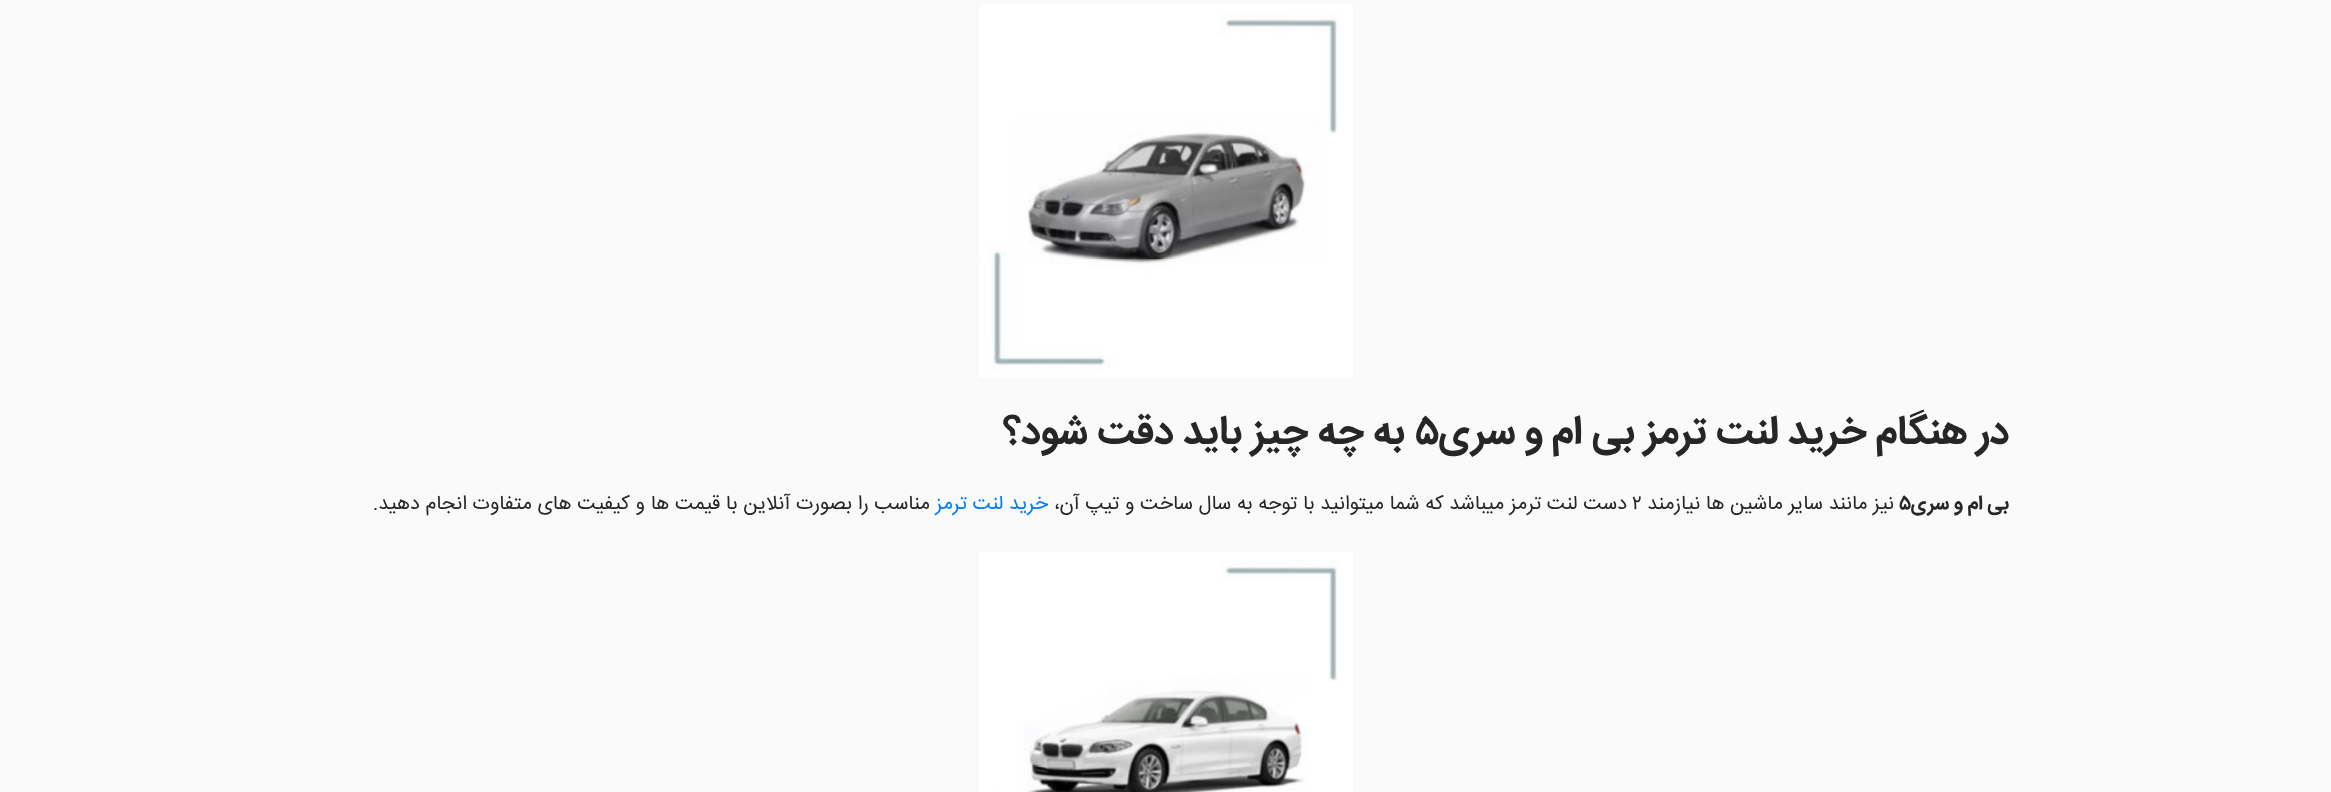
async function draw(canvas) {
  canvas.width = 2331
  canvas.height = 792
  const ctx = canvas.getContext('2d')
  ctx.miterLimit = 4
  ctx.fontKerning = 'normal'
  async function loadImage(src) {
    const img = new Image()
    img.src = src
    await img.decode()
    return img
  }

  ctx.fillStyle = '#fafafa'
  ctx.fillRect(0, 0, 2331, 792)
  ctx.drawImage(await loadImage('image0.png'), 979, 4, 374, 374)
  ctx.direction = 'rtl'
  ctx.font = 'bold 40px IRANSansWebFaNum'
  ctx.fillStyle = '#262626'
  ctx.fillText('در هنگام خرید لنت ترمز', 2009, 443)
  ctx.fillText('بی ام و سری', 1635, 443)
  ctx.direction = 'ltr'
  ctx.fillText('۵', 1415, 443)
  ctx.direction = 'rtl'
  ctx.fillText('به چه چیز باید دقت شود؟', 1405, 443)
  ctx.font = 'bold 20px IRANSansWebFaNum'
  ctx.fillText('بی ام و سری', 2009, 509)
  ctx.direction = 'ltr'
  ctx.fillText('۵', 1899, 509)
  ctx.direction = 'rtl'
  ctx.font = '20px IRANSansWebFaNum'
  ctx.fillText('نیز مانند سایر ماشین ها نیازمند', 1894, 509)
  ctx.direction = 'ltr'
  ctx.fillText('۲', 1632, 509)
  ctx.direction = 'rtl'
  ctx.fillText('دست لنت ترمز میباشد که شما میتوانید با توجه به سال ساخت و تیپ آن،', 1627, 509)
  ctx.fillStyle = '#007bff'
  ctx.fillText('خرید لنت ترمز', 1048, 509)
  ctx.fillStyle = '#262626'
  ctx.fillText('مناسب را بصورت آنلاین با قیمت ها و کیفیت های متفاوت انجام دهید.', 930, 509)
  ctx.drawImage(await loadImage('image1.png'), 979, 552, 374, 240)
}

draw(document.querySelector('canvas'))
